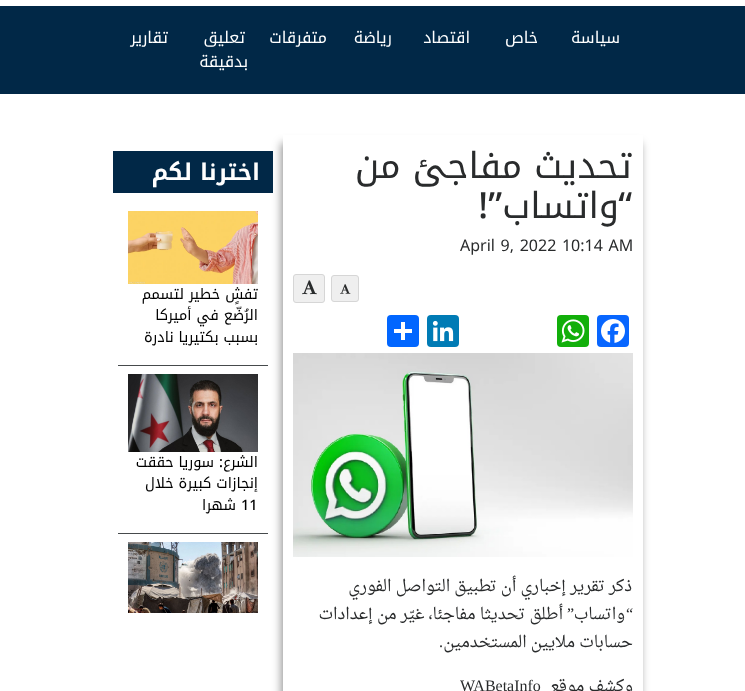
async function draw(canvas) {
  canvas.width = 745
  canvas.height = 691
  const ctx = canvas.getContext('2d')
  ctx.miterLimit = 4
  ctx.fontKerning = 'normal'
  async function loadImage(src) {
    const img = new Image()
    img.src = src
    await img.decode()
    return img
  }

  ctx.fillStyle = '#fff'
  ctx.fillRect(0, 0, 745, 691)
  ctx.fillStyle = '#012847'
  ctx.fillRect(0, 6, 745, 88)
  ctx.direction = 'rtl'
  ctx.font = '16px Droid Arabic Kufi'
  ctx.fillStyle = '#fff'
  ctx.fillText('سياسة', 620, 43)
  ctx.fillText('خاص', 538, 43)
  ctx.fillText('اقتصاد', 470, 43)
  ctx.fillText('رياضة', 392, 43)
  ctx.fillText('متفرقات', 327, 43)
  ctx.fillText('تعليق', 245, 43)
  ctx.fillText('بدقيقة', 248, 67)
  ctx.fillText('تقارير', 168, 43)
  ctx.save()
  ctx.beginPath()
  ctx.moveTo(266, 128)
  ctx.lineTo(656, 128)
  ctx.lineTo(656, 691)
  ctx.lineTo(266, 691)
  ctx.closePath()
  ctx.moveTo(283, 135)
  ctx.lineTo(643, 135)
  ctx.lineTo(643, 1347)
  ctx.lineTo(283, 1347)
  ctx.closePath()
  ctx.clip('evenodd')
  ctx.fillStyle = '#00000066'
  ctx.filter = 'blur(4.5px)'
  ctx.beginPath()
  ctx.rect(281, 143, 360, 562)
  ctx.fill()
  ctx.filter = 'none'
  ctx.restore()
  ctx.font = '36px Droid Arabic Kufi'
  ctx.fillStyle = '#292b2c'
  ctx.fillText('تحديث مفاجئ من', 632, 178)
  ctx.font = '500 36px Noto Sans'
  ctx.fillText('“', 632, 218)
  ctx.font = '36px Droid Arabic Kufi'
  ctx.fillText('واتساب', 619, 218)
  ctx.font = '500 36px Noto Sans'
  ctx.fillText('”!', 502, 218)
  ctx.wordSpacing = '1.5px'
  ctx.direction = 'ltr'
  ctx.font = '16px Noto Sans'
  ctx.fillText('April 9, 2022 10:14 AM', 460, 251)
  ctx.fillStyle = '#efefef'
  ctx.beginPath()
  ctx.roundRect(331.5, 275.5, 27, 26, 2.5)
  ctx.fill()
  ctx.strokeStyle = '#d6d6d6'
  ctx.stroke()
  ctx.drawImage(await loadImage('image0.png'), 340, 284, 11, 10)
  ctx.beginPath()
  ctx.roundRect(293.5, 274.5, 31, 28, 2.5)
  ctx.fill()
  ctx.stroke()
  ctx.drawImage(await loadImage('image1.png'), 302, 280, 15, 15)
  ctx.fillStyle = '#0866ff'
  ctx.beginPath()
  ctx.roundRect(597, 315, 32, 32, 4)
  ctx.fill()
  ctx.drawImage(await loadImage('image2.png'), 601, 319, 24, 24)
  ctx.fillStyle = '#12af0a'
  ctx.beginPath()
  ctx.roundRect(557, 315, 32, 32, 4)
  ctx.fill()
  ctx.drawImage(await loadImage('image3.png'), 561, 319, 24, 24)
  ctx.fillStyle = '#007bb5'
  ctx.beginPath()
  ctx.roundRect(427, 315, 32, 32, 4)
  ctx.fill()
  ctx.drawImage(await loadImage('image4.png'), 432, 320, 22, 22)
  ctx.fillStyle = '#0166ff'
  ctx.beginPath()
  ctx.roundRect(387, 315, 32, 32, 4)
  ctx.fill()
  ctx.fillStyle = '#fff'
  ctx.fillRect(401, 322, 4, 18)
  ctx.fillRect(394, 329, 18, 4)
  ctx.drawImage(await loadImage('image5.png'), 293, 353, 340, 204)
  ctx.wordSpacing = '0px'
  ctx.direction = 'rtl'
  ctx.font = '16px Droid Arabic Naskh'
  ctx.fillStyle = '#292b2c'
  ctx.fillText('ذكر تقرير إخباري أن تطبيق التواصل الفوري', 632, 591)
  ctx.font = '16px Liberation Serif'
  ctx.fillText('“', 633, 619)
  ctx.font = '16px Droid Arabic Naskh'
  ctx.fillText('واتساب', 625, 619)
  ctx.font = '16px Liberation Serif'
  ctx.fillText('”', 574, 619)
  ctx.font = '16px Droid Arabic Naskh'
  ctx.fillText('أطلق تحديثا مفاجئا، غيّر من إعدادات', 563, 619)
  ctx.fillText('حسابات ملايين المستخدمين', 633, 647)
  ctx.font = '16px Liberation Serif'
  ctx.fillText('.', 443, 647)
  ctx.font = '16px Droid Arabic Naskh'
  ctx.fillText('وكشف موقع', 633, 691)
  ctx.direction = 'ltr'
  ctx.font = '16px Liberation Serif'
  ctx.fillText('WABetaInfo', 460, 691)
  ctx.fillStyle = '#012847'
  ctx.fillRect(113, 151, 160, 42)
  ctx.direction = 'rtl'
  ctx.font = 'bold 23px Droid Arabic Kufi'
  ctx.fillStyle = '#fff'
  ctx.fillText('اخترنا لكم', 260, 180)
  ctx.fillStyle = '#464a4c'
  ctx.fillRect(118, 365, 150, 1)
  ctx.drawImage(await loadImage('image6.png'), 128, 211, 130, 73)
  ctx.font = '14.5px Droid Arabic Kufi'
  ctx.fillStyle = '#000'
  ctx.fillText('تفشٍ خطير لتسمم', 258, 299)
  ctx.fillText('الرُضّع في أميركا', 258, 320)
  ctx.fillText('بسبب بكتيريا نادرة', 258, 342)
  ctx.fillStyle = '#464a4c'
  ctx.fillRect(118, 533, 150, 1)
  ctx.drawImage(await loadImage('image7.png'), 128, 374, 130, 78)
  ctx.fillStyle = '#000'
  ctx.fillText('الشرع', 258, 467)
  ctx.font = '500 14.5px Noto Sans'
  ctx.fillText(':', 223, 467)
  ctx.font = '14.5px Droid Arabic Kufi'
  ctx.fillText('سوريا حققت', 214, 467)
  ctx.fillText('إنجازات كبيرة خلال', 258, 488)
  ctx.direction = 'ltr'
  ctx.font = '500 14.5px Noto Sans'
  ctx.fillText('11', 241, 510)
  ctx.direction = 'rtl'
  ctx.font = '14.5px Droid Arabic Kufi'
  ctx.fillText('شهرا', 236, 510)
  ctx.drawImage(await loadImage('image8.png'), 128, 542, 130, 71)
}

draw(document.querySelector('canvas'))
